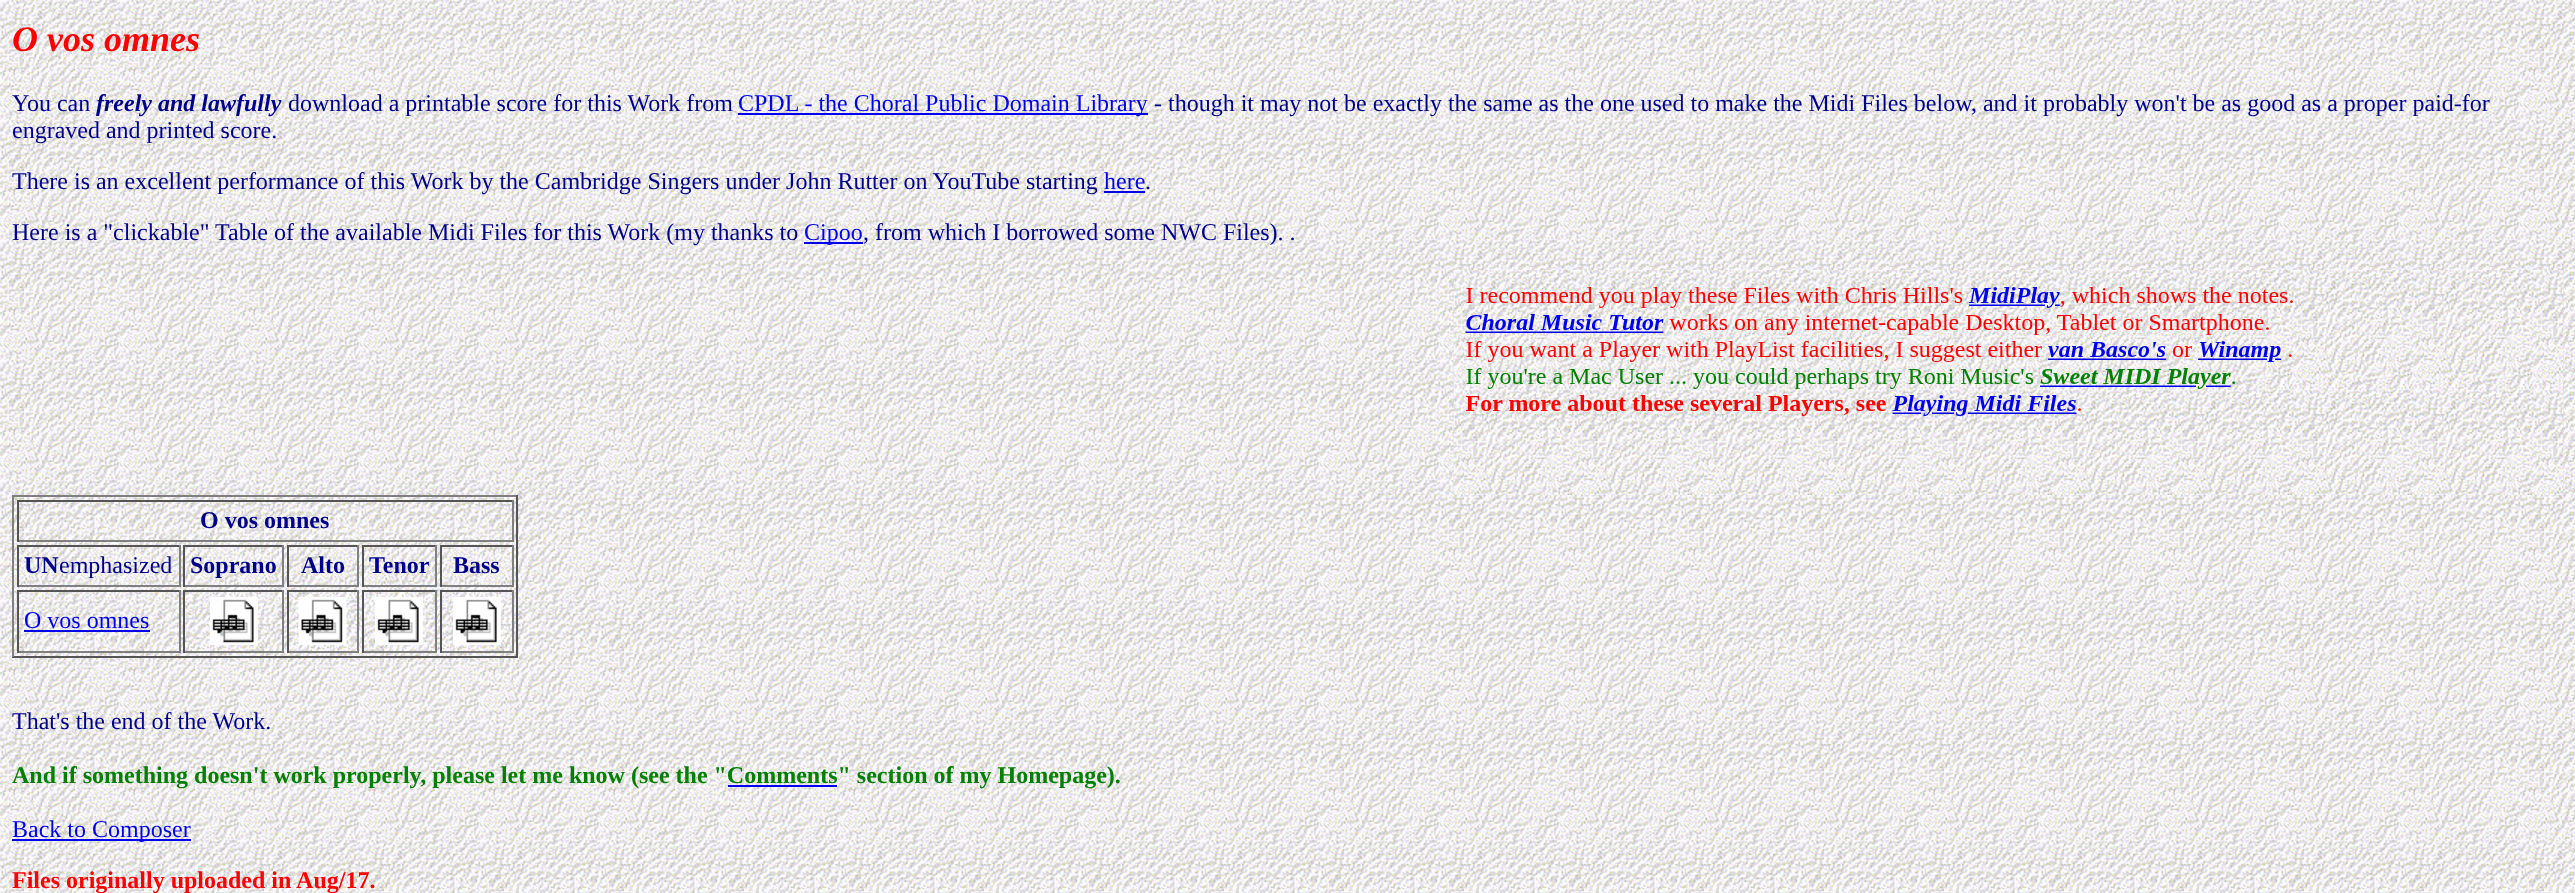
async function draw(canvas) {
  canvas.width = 2575
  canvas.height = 893
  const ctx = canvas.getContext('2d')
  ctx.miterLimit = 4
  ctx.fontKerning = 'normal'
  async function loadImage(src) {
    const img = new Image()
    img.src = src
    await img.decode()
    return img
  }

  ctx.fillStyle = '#fff'
  ctx.fillRect(0, 0, 2575, 893)
  ctx.drawImage(await loadImage('image0.png'), 0, 0, 2575, 893)
  ctx.font = 'italic bold 36px Liberation Serif'
  ctx.fillStyle = '#f00'
  ctx.fillText('O vos omnes', 12, 51)
  ctx.font = '24px Liberation Serif'
  ctx.fillStyle = '#00008b'
  ctx.fillText('You can', 12, 111)
  ctx.font = 'italic bold 24px Liberation Serif'
  ctx.fillText('freely and lawfully', 96, 111)
  ctx.font = '24px Liberation Serif'
  ctx.fillText('download a printable score for this Work from', 288, 111)
  ctx.fillStyle = '#00e'
  ctx.fillRect(738, 113, 410, 2)
  ctx.fillText('CPDL - the Choral Public Domain Library', 738, 111)
  ctx.fillStyle = '#00008b'
  ctx.fillText('- though it may not be exactly the same as the one used to make the Midi Files below, and it probably won\'t be as good as a proper paid-for', 1154, 111)
  ctx.fillText('engraved and printed score.', 12, 138)
  ctx.fillText('There is an excellent performance of this Work by the Cambridge Singers under John Rutter on YouTube starting', 12, 189)
  ctx.fillStyle = '#00e'
  ctx.fillText('here', 1104, 189)
  ctx.fillRect(1104, 191, 41, 2)
  ctx.fillStyle = '#00008b'
  ctx.fillText('.', 1145, 189)
  ctx.fillText('Here is a "clickable" Table of the available Midi Files for this Work (my thanks to', 12, 240)
  ctx.fillStyle = '#00e'
  ctx.fillRect(804, 242, 59, 2)
  ctx.fillText('Cipoo', 804, 240)
  ctx.fillStyle = '#00008b'
  ctx.fillText(', from which I borrowed some NWC Files). .', 863, 240)
  ctx.drawImage(await loadImage('image1.png'), 1453, 270, 1111, 225)
  ctx.fillStyle = '#808080'
  ctx.fillRect(12, 495, 506, 2)
  ctx.fillStyle = '#555'
  ctx.fillRect(516, 495, 2, 162)
  ctx.fillRect(12, 656, 506, 2)
  ctx.fillStyle = '#808080'
  ctx.fillRect(12, 495, 2, 162)
  ctx.fillStyle = '#555'
  ctx.fillRect(17, 500, 496, 2)
  ctx.fillStyle = '#808080'
  ctx.fillRect(512, 500, 2, 42)
  ctx.fillRect(17, 540, 496, 2)
  ctx.fillStyle = '#555'
  ctx.fillRect(17, 500, 2, 42)
  ctx.font = 'bold 24px Liberation Serif'
  ctx.fillStyle = '#00008b'
  ctx.fillText('O vos omnes', 200, 528)
  ctx.fillStyle = '#555'
  ctx.fillRect(17, 545, 163, 2)
  ctx.fillStyle = '#808080'
  ctx.fillRect(179, 545, 2, 42)
  ctx.fillRect(17, 585, 163, 2)
  ctx.fillStyle = '#555'
  ctx.fillRect(17, 545, 2, 42)
  ctx.fillStyle = '#00008b'
  ctx.fillText('UN', 24, 573)
  ctx.font = '24px Liberation Serif'
  ctx.fillText('emphasized', 59, 573)
  ctx.fillStyle = '#555'
  ctx.fillRect(183, 545, 101, 2)
  ctx.fillStyle = '#808080'
  ctx.fillRect(282, 545, 2, 42)
  ctx.fillRect(183, 585, 101, 2)
  ctx.fillStyle = '#555'
  ctx.fillRect(183, 545, 2, 42)
  ctx.font = 'bold 24px Liberation Serif'
  ctx.fillStyle = '#00008b'
  ctx.fillText('Soprano', 190, 573)
  ctx.fillStyle = '#555'
  ctx.fillRect(287, 545, 72, 2)
  ctx.fillStyle = '#808080'
  ctx.fillRect(357, 545, 2, 42)
  ctx.fillRect(287, 585, 72, 2)
  ctx.fillStyle = '#555'
  ctx.fillRect(287, 545, 2, 42)
  ctx.fillStyle = '#00008b'
  ctx.fillText('Alto', 301, 573)
  ctx.fillStyle = '#555'
  ctx.fillRect(362, 545, 75, 2)
  ctx.fillStyle = '#808080'
  ctx.fillRect(435, 545, 2, 42)
  ctx.fillRect(362, 585, 75, 2)
  ctx.fillStyle = '#555'
  ctx.fillRect(362, 545, 2, 42)
  ctx.fillStyle = '#00008b'
  ctx.fillText('Tenor', 369, 573)
  ctx.fillStyle = '#555'
  ctx.fillRect(440, 545, 73, 2)
  ctx.fillStyle = '#808080'
  ctx.fillRect(512, 545, 2, 42)
  ctx.fillRect(440, 585, 73, 2)
  ctx.fillStyle = '#555'
  ctx.fillRect(440, 545, 2, 42)
  ctx.fillStyle = '#00008b'
  ctx.fillText('Bass', 453, 573)
  ctx.fillStyle = '#555'
  ctx.fillRect(17, 590, 163, 2)
  ctx.fillStyle = '#808080'
  ctx.fillRect(179, 590, 2, 63)
  ctx.fillRect(17, 651, 163, 2)
  ctx.fillStyle = '#555'
  ctx.fillRect(17, 590, 2, 63)
  ctx.font = '24px Liberation Serif'
  ctx.fillStyle = '#00e'
  ctx.fillText('O vos omnes', 24, 628)
  ctx.fillRect(24, 630, 126, 2)
  ctx.fillStyle = '#555'
  ctx.fillRect(183, 590, 101, 2)
  ctx.fillStyle = '#808080'
  ctx.fillRect(282, 590, 2, 63)
  ctx.fillRect(183, 651, 101, 2)
  ctx.fillStyle = '#555'
  ctx.fillRect(183, 590, 2, 63)
  ctx.drawImage(await loadImage('image2.png'), 210, 597, 48, 48)
  ctx.fillRect(287, 590, 72, 2)
  ctx.fillStyle = '#808080'
  ctx.fillRect(357, 590, 2, 63)
  ctx.fillRect(287, 651, 72, 2)
  ctx.fillStyle = '#555'
  ctx.fillRect(287, 590, 2, 63)
  ctx.drawImage(await loadImage('image3.png'), 298, 597, 49, 48)
  ctx.fillRect(362, 590, 75, 2)
  ctx.fillStyle = '#808080'
  ctx.fillRect(435, 590, 2, 63)
  ctx.fillRect(362, 651, 75, 2)
  ctx.fillStyle = '#555'
  ctx.fillRect(362, 590, 2, 63)
  ctx.drawImage(await loadImage('image4.png'), 375, 597, 48, 48)
  ctx.fillRect(440, 590, 73, 2)
  ctx.fillStyle = '#808080'
  ctx.fillRect(512, 590, 2, 63)
  ctx.fillRect(440, 651, 73, 2)
  ctx.fillStyle = '#555'
  ctx.fillRect(440, 590, 2, 63)
  ctx.drawImage(await loadImage('image4.png'), 453, 597, 48, 48)
  ctx.fillStyle = '#00008b'
  ctx.fillText('That\'s the end of the Work.', 12, 729)
  ctx.font = 'bold 24px Liberation Serif'
  ctx.fillStyle = '#008000'
  ctx.fillText('And if something doesn\'t work properly, please let me know (see the "Comments" section of my Homepage).', 12, 783)
  ctx.fillStyle = '#00e'
  ctx.fillRect(728, 785, 109, 2)
  ctx.fillRect(12, 839, 179, 2)
  ctx.font = '24px Liberation Serif'
  ctx.fillText('Back to Composer', 12, 837)
  ctx.font = 'bold 24px Liberation Serif'
  ctx.fillStyle = '#f00'
  ctx.fillText('Files originally uploaded in Aug/17.', 12, 888)
}

draw(document.querySelector('canvas'))
